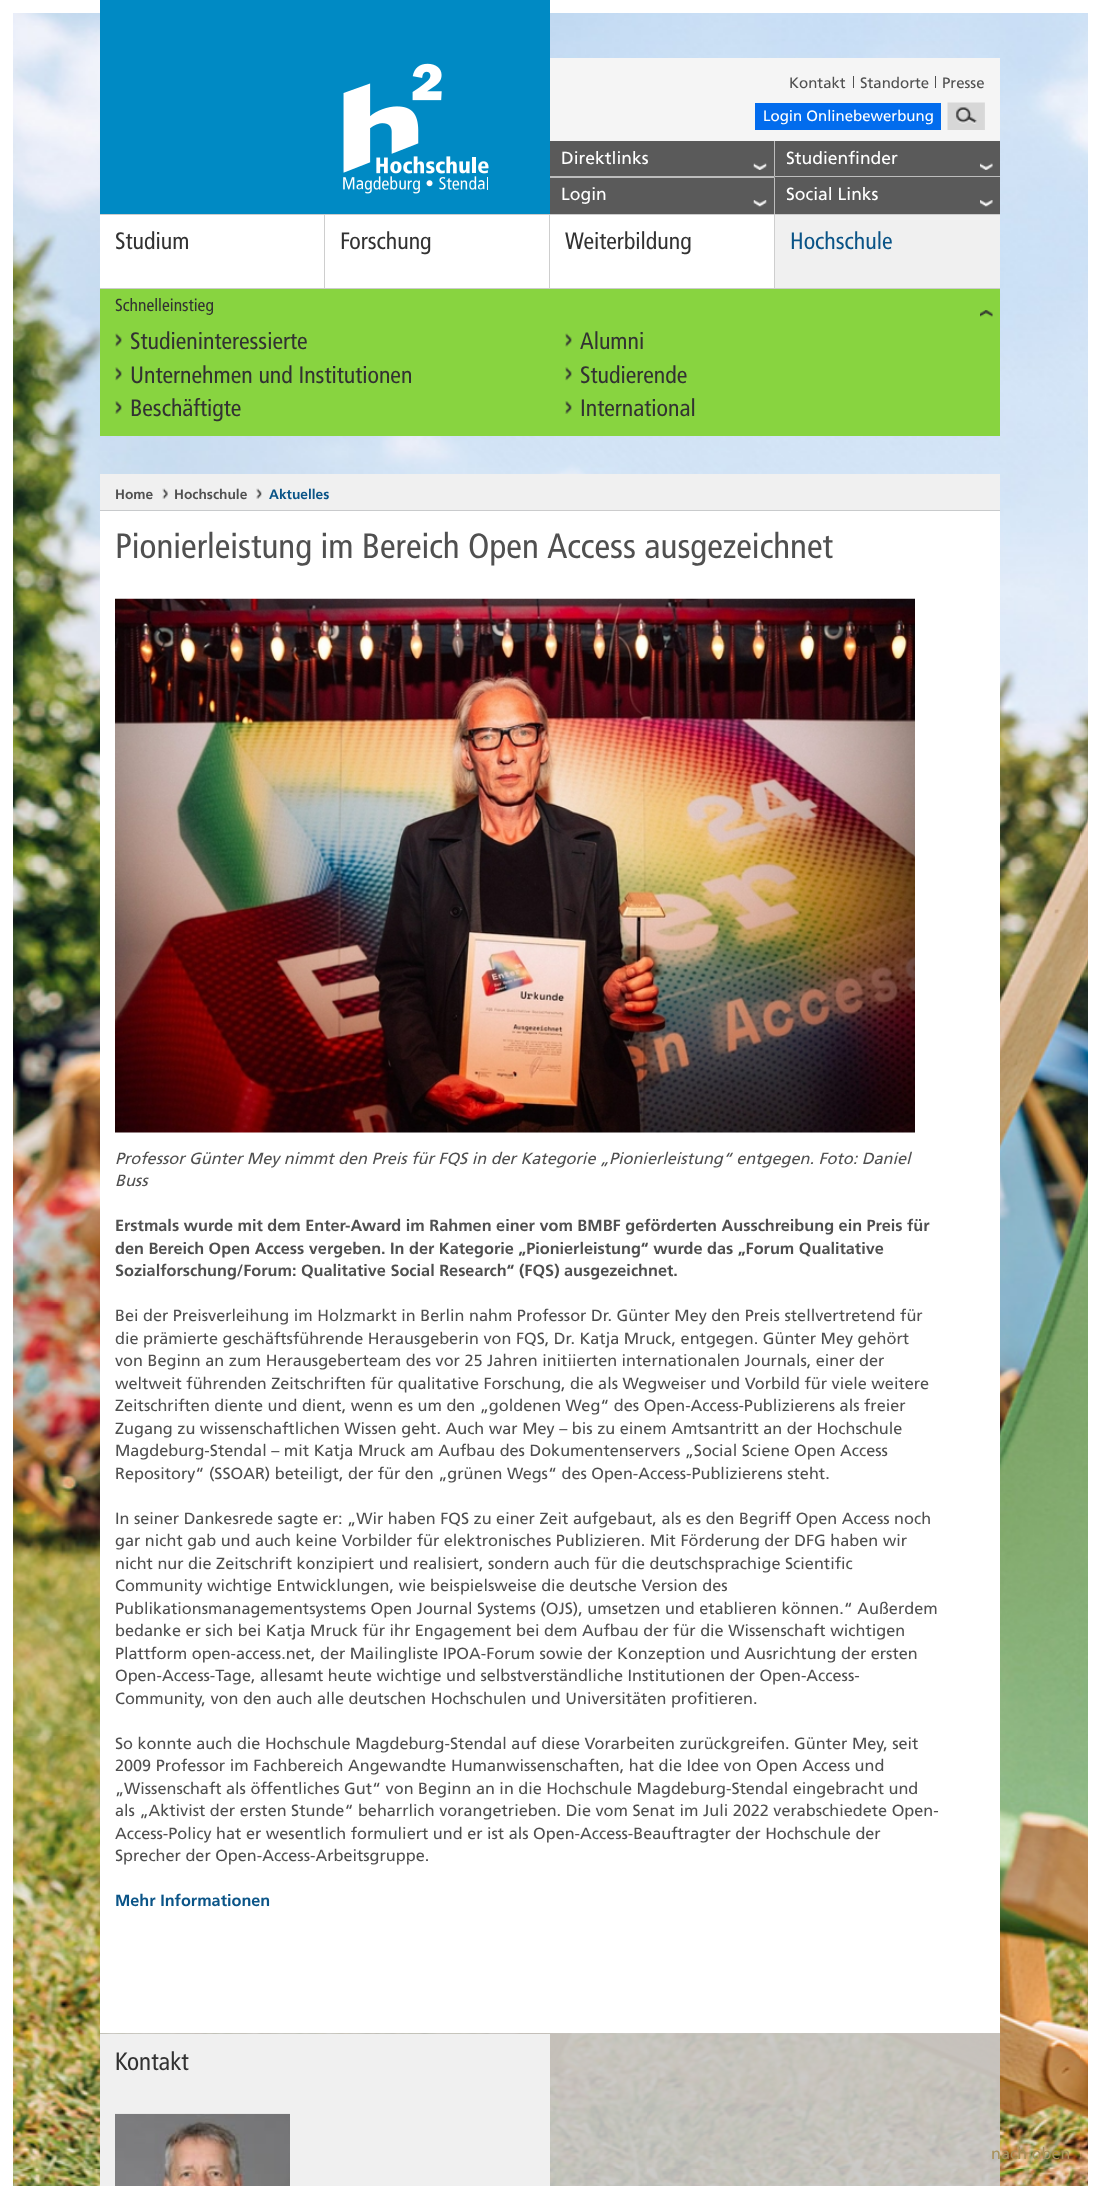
async function draw(canvas) {
  canvas.width = 1099
  canvas.height = 2186
  const ctx = canvas.getContext('2d')
  ctx.miterLimit = 4
  ctx.fontKerning = 'normal'
  async function loadImage(src) {
    const img = new Image()
    img.src = src
    await img.decode()
    return img
  }

  ctx.fillStyle = '#fff'
  ctx.fillRect(0, 0, 1099, 2186)
  ctx.drawImage(await loadImage('image0.png'), 13, 13, 1075, 2173)
  ctx.drawImage(await loadImage('image1.png'), 100, 0, 450, 214)
  ctx.fillStyle = '#f5f5f5'
  ctx.fillRect(550, 58, 450, 83)
  ctx.font = '15px "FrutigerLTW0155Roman"'
  ctx.fillStyle = '#505050'
  ctx.fillText('Kontakt', 789, 88)
  ctx.fillRect(853, 76, 1, 12)
  ctx.fillText('Standorte', 860, 88)
  ctx.fillRect(935, 76, 1, 12)
  ctx.fillText('Presse', 942, 88)
  ctx.fillStyle = '#026ced'
  ctx.fillRect(755, 103, 186, 27)
  ctx.fillStyle = '#fff'
  ctx.fillText('Login Onlinebewerbung', 763, 121)
  ctx.drawImage(await loadImage('image2.png'), 947, 102, 38, 28)
  ctx.fillStyle = '#ccc'
  ctx.fillRect(100, 214, 900, 1)
  ctx.fillRect(100, 288, 900, 1)
  ctx.fillStyle = '#5a5a5a'
  ctx.fillRect(550, 141, 450, 37)
  ctx.fillStyle = '#bdbdbd'
  ctx.beginPath()
  ctx.moveTo(775, 141)
  ctx.lineTo(775, 177.5)
  ctx.lineTo(774, 176)
  ctx.lineTo(774, 141)
  ctx.closePath()
  ctx.fill()
  ctx.fillStyle = '#c8c8c8e6'
  ctx.beginPath()
  ctx.moveTo(775, 178)
  ctx.lineTo(550, 178)
  ctx.lineTo(550, 176)
  ctx.lineTo(774, 176)
  ctx.closePath()
  ctx.fill()
  ctx.font = '17.5px "FrutigerLTW0155Roman"'
  ctx.fillStyle = '#fff'
  ctx.fillText('Direktlinks', 561, 164)
  ctx.drawImage(await loadImage('image3.png'), 753, 163, 14, 7)
  ctx.fillStyle = '#bdbdbd'
  ctx.fillRect(775, 176, 225, 1)
  ctx.fillStyle = '#fff'
  ctx.fillText('Studienfinder', 786, 164)
  ctx.drawImage(await loadImage('image4.png'), 980, 163, 13, 7)
  ctx.fillStyle = '#5a5a5a'
  ctx.fillRect(550, 178, 224, 36)
  ctx.fillStyle = '#bdbdbd'
  ctx.fillRect(774, 178, 1, 36)
  ctx.fillStyle = '#fff'
  ctx.fillText('Login', 561, 200)
  ctx.drawImage(await loadImage('image5.png'), 753, 200, 14, 7)
  ctx.fillStyle = '#5a5a5a'
  ctx.fillRect(775, 178, 225, 36)
  ctx.fillStyle = '#fff'
  ctx.fillText('Social Links', 786, 200)
  ctx.drawImage(await loadImage('image6.png'), 980, 200, 13, 7)
  ctx.fillRect(100, 215, 224, 73)
  ctx.fillStyle = '#cecece'
  ctx.fillRect(324, 215, 1, 73)
  ctx.font = '23.75px "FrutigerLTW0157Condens"'
  ctx.fillStyle = '#323232'
  ctx.fillText('Studium', 115, 249)
  ctx.fillStyle = '#fff'
  ctx.fillRect(325, 215, 224, 73)
  ctx.fillStyle = '#cecece'
  ctx.fillRect(549, 215, 1, 73)
  ctx.fillStyle = '#323232'
  ctx.fillText('Forschung', 340, 249)
  ctx.fillStyle = '#fff'
  ctx.fillRect(550, 215, 224, 73)
  ctx.fillStyle = '#cecece'
  ctx.fillRect(774, 215, 1, 73)
  ctx.fillStyle = '#323232'
  ctx.fillText('Weiterbildung', 565, 249)
  ctx.fillStyle = '#f0f0f0'
  ctx.fillRect(775, 215, 225, 73)
  ctx.fillStyle = '#0a5487'
  ctx.fillText('Hochschule', 790, 249)
  ctx.fillStyle = '#88d440'
  ctx.fillRect(100, 289, 900, 147)
  ctx.font = '17.5px "FrutigerLTW0157Condens"'
  ctx.fillStyle = '#323232'
  ctx.fillText('Schnelleinstieg', 115, 311)
  ctx.drawImage(await loadImage('image7.png'), 980, 310, 13, 7)
  ctx.drawImage(await loadImage('image8.png'), 115, 333, 7, 14)
  ctx.font = '23.75px "FrutigerLTW0157Condens"'
  ctx.fillText('Studieninteressierte', 130, 349)
  ctx.drawImage(await loadImage('image9.png'), 565, 333, 7, 14)
  ctx.fillText('Alumni', 580, 349)
  ctx.drawImage(await loadImage('image10.png'), 115, 367, 7, 14)
  ctx.fillText('Unternehmen und Institutionen', 130, 383)
  ctx.drawImage(await loadImage('image11.png'), 565, 367, 7, 14)
  ctx.fillText('Studierende', 580, 383)
  ctx.drawImage(await loadImage('image12.png'), 115, 401, 7, 13)
  ctx.fillText('Beschäftigte', 130, 416)
  ctx.drawImage(await loadImage('image13.png'), 565, 401, 7, 13)
  ctx.fillText('International', 580, 416)
  ctx.fillStyle = '#f0f0f0'
  ctx.fillRect(100, 474, 900, 36)
  ctx.drawImage(await loadImage('image14.png'), 162, 488, 6, 11)
  ctx.font = 'bold 13.75px "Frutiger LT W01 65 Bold"'
  ctx.fillStyle = '#505050'
  ctx.fillText('Home', 115, 499)
  ctx.drawImage(await loadImage('image15.png'), 256, 488, 6, 11)
  ctx.fillText('Hochschule', 174, 499)
  ctx.fillStyle = '#0a5487'
  ctx.fillText('Aktuelles', 269, 499)
  ctx.fillStyle = '#c8c8c8e6'
  ctx.fillRect(100, 510, 900, 1676)
  ctx.fillStyle = '#fff'
  ctx.fillRect(100, 511, 900, 1522)
  ctx.font = '35px "FrutigerLTW0157Condens"'
  ctx.fillStyle = '#505050'
  ctx.fillText('Pionierleistung im Bereich Open Access ausgezeichnet', 115, 558)
  ctx.drawImage(await loadImage('image16.png'), 115, 598, 800, 535)
  ctx.font = 'italic 16.25px "FrutigerLTW0155Roman"'
  ctx.fillText('Professor Günter Mey nimmt den Preis für FQS in der Kategorie „Pionierleistung“ entgegen. Foto: Daniel', 115, 1164)
  ctx.fillText('Buss', 115, 1186)
  ctx.font = 'bold 16.25px "Frutiger LT W01 65 Bold"'
  ctx.fillText('Erstmals wurde mit dem Enter-Award im Rahmen einer vom BMBF geförderten Ausschreibung ein Preis für', 115, 1231)
  ctx.fillText('den Bereich Open Access vergeben. In der Kategorie „Pionierleistung“ wurde das „Forum Qualitative', 115, 1254)
  ctx.fillText('Sozialforschung/Forum: Qualitative Social Research“ (FQS) ausgezeichnet.', 115, 1276)
  ctx.font = '16.25px "FrutigerLTW0155Roman"'
  ctx.fillText('Bei der Preisverleihung im Holzmarkt in Berlin nahm Professor Dr. Günter Mey den Preis stellvertretend für', 115, 1321)
  ctx.fillText('die prämierte geschäftsführende Herausgeberin von FQS, Dr. Katja Mruck, entgegen. Günter Mey gehört', 115, 1344)
  ctx.fillText('von Beginn an zum Herausgeberteam des vor 25 Jahren initiierten internationalen Journals, einer der', 115, 1366)
  ctx.fillText('weltweit führenden Zeitschriften für qualitative Forschung, die als Wegweiser und Vorbild für viele weitere', 115, 1389)
  ctx.fillText('Zeitschriften diente und dient, wenn es um den „goldenen Weg“ des Open-Access-Publizierens als freier', 115, 1411)
  ctx.fillText('Zugang zu wissenschaftlichen Wissen geht. Auch war Mey – bis zu einem Amtsantritt an der Hochschule', 115, 1434)
  ctx.fillText('Magdeburg-Stendal – mit Katja Mruck am Aufbau des Dokumentenservers „Social Sciene Open Access', 115, 1456)
  ctx.fillText('Repository“ (SSOAR) beteiligt, der für den „grünen Wegs“ des Open-Access-Publizierens steht.', 115, 1479)
  ctx.fillText('In seiner Dankesrede sagte er: „Wir haben FQS zu einer Zeit aufgebaut, als es den Begriff Open Access noch', 115, 1524)
  ctx.fillText('gar nicht gab und auch keine Vorbilder für elektronisches Publizieren. Mit Förderung der DFG haben wir', 115, 1546)
  ctx.fillText('nicht nur die Zeitschrift konzipiert und realisiert, sondern auch für die deutschsprachige Scientific', 115, 1569)
  ctx.fillText('Community wichtige Entwicklungen, wie beispielsweise die deutsche Version des', 115, 1591)
  ctx.fillText('Publikationsmanagementsystems Open Journal Systems (OJS), umsetzen und etablieren können.“ Außerdem', 115, 1614)
  ctx.fillText('bedanke er sich bei Katja Mruck für ihr Engagement bei dem Aufbau der für die Wissenschaft wichtigen', 115, 1636)
  ctx.fillText('Plattform open-access.net, der Mailingliste IPOA-Forum sowie der Konzeption und Ausrichtung der ersten', 115, 1659)
  ctx.fillText('Open-Access-Tage, allesamt heute wichtige und selbstverständliche Institutionen der Open-Access-', 115, 1681)
  ctx.fillText('Community, von den auch alle deutschen Hochschulen und Universitäten profitieren.', 115, 1704)
  ctx.fillText('So konnte auch die Hochschule Magdeburg-Stendal auf diese Vorarbeiten zurückgreifen. Günter Mey, seit', 115, 1749)
  ctx.fillText('2009 Professor im Fachbereich Angewandte Humanwissenschaften, hat die Idee von Open Access und', 115, 1771)
  ctx.fillText('„Wissenschaft als öffentliches Gut“ von Beginn an in die Hochschule Magdeburg-Stendal eingebracht und', 115, 1794)
  ctx.fillText('als „Aktivist der ersten Stunde“ beharrlich vorangetrieben. Die vom Senat im Juli 2022 verabschiedete Open-', 115, 1816)
  ctx.fillText('Access-Policy hat er wesentlich formuliert und er ist als Open-Access-Beauftragter der Hochschule der', 115, 1839)
  ctx.fillText('Sprecher der Open-Access-Arbeitsgruppe.', 115, 1861)
  ctx.font = 'bold 16.25px "Frutiger LT W01 65 Bold"'
  ctx.fillStyle = '#0a5487'
  ctx.fillText('Mehr Informationen', 115, 1906)
  ctx.fillStyle = '#f0f0f0'
  ctx.fillRect(100, 2034, 450, 152)
  ctx.font = '25px "FrutigerLTW0157Condens"'
  ctx.fillStyle = '#323232'
  ctx.fillText('Kontakt', 115, 2070)
  ctx.drawImage(await loadImage('image17.png'), 115, 2113, 175, 73)
  ctx.font = '16.25px "FrutigerLTW0155Roman"'
  ctx.fillStyle = '#a7905a'
  ctx.fillText('nach oben', 991, 2159)
}

draw(document.querySelector('canvas'))
